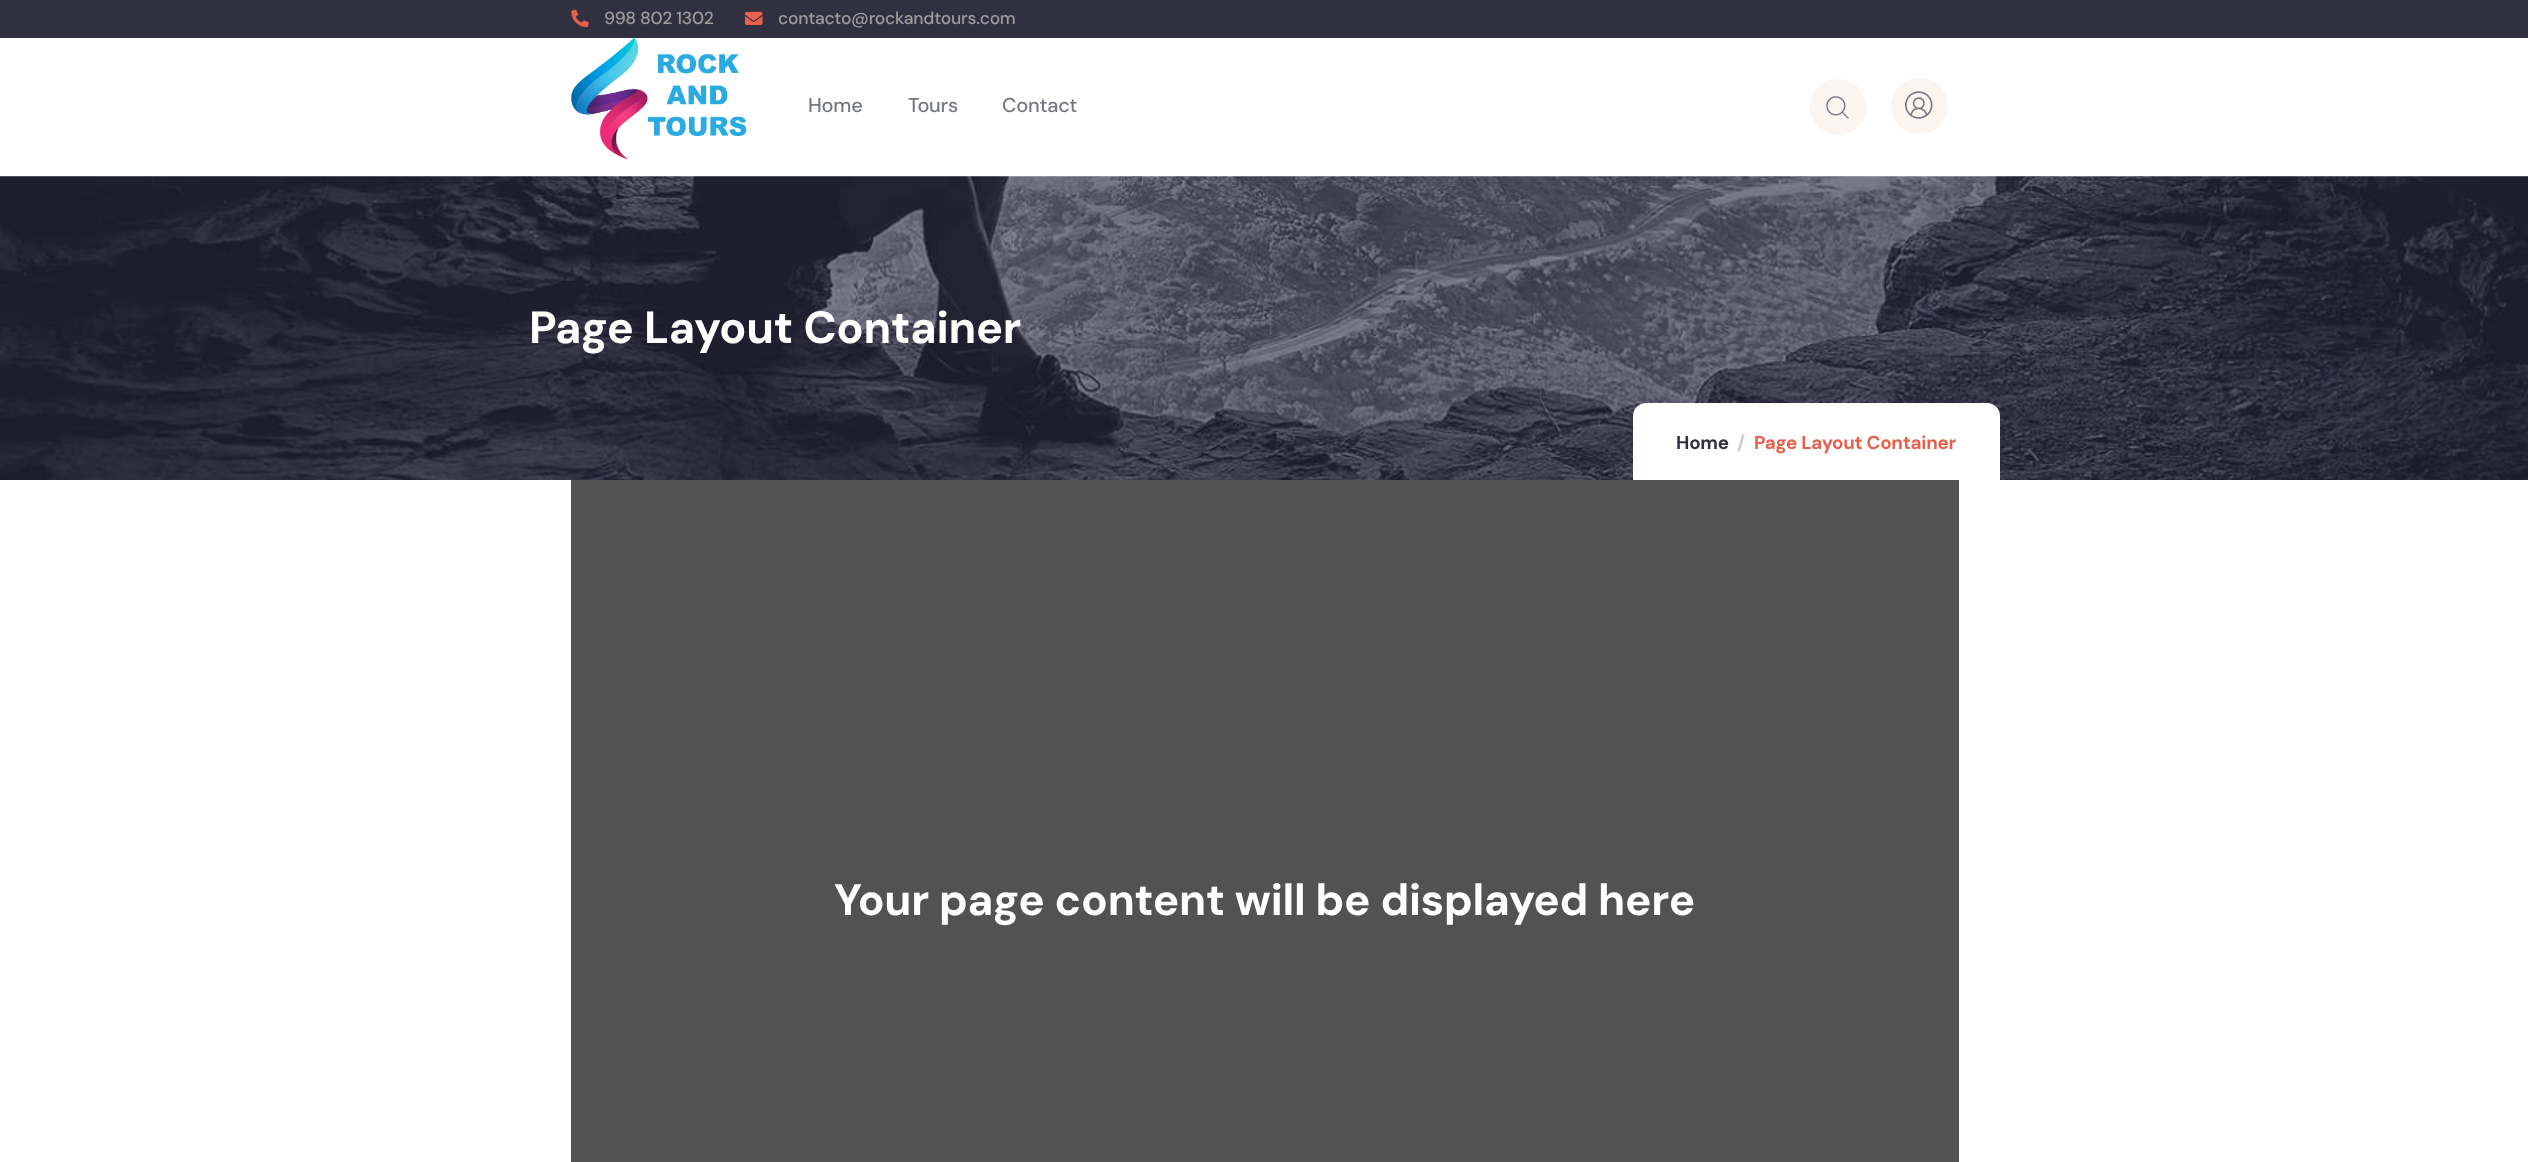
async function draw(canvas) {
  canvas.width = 2528
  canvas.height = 1162
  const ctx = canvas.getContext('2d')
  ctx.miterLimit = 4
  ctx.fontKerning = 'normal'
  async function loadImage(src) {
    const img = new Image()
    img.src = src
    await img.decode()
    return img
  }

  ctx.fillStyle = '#fff'
  ctx.fillRect(0, 0, 2528, 1162)
  ctx.fillStyle = '#313041'
  ctx.fillRect(0, 0, 2528, 38)
  ctx.drawImage(await loadImage('image0.png'), 571, 9, 18, 19)
  ctx.letterSpacing = '-0.25px'
  ctx.font = '500 17.5px DM Sans'
  ctx.fillStyle = '#9d9d9d'
  ctx.fillText('998 802 1302', 604, 24)
  ctx.drawImage(await loadImage('image1.png'), 745, 11, 18, 14)
  ctx.fillText('contacto@rockandtours.com', 778, 24)
  ctx.drawImage(await loadImage('image2.png'), 571, 37, 176, 123)
  ctx.font = '500 20px DM Sans'
  ctx.fillStyle = '#757783'
  ctx.fillText('Home', 808, 112)
  ctx.fillText('Tours', 908, 112)
  ctx.fillText('Contact', 1002, 112)
  ctx.fillStyle = '#faf5ee'
  ctx.beginPath()
  ctx.arc(1838, 107, 28, 0, 2 * Math.PI)
  ctx.fill()
  ctx.drawImage(await loadImage('image3.png'), 1826, 96, 23, 23)
  ctx.beginPath()
  ctx.roundRect(1891, 78, 57, 56, 28)
  ctx.fill()
  ctx.drawImage(await loadImage('image4.png'), 1905, 91, 28, 28)
  ctx.drawImage(await loadImage('image5.png'), 0, 176, 2528, 304)
  ctx.font = 'bold 45px DM Sans'
  ctx.fillStyle = '#fff'
  ctx.fillText('Page Layout Container', 529, 343)
  ctx.beginPath()
  ctx.roundRect(1633, 403, 367, 77, [13, 13, 0, 0])
  ctx.fill()
  ctx.font = 'bold 18.75px DM Sans'
  ctx.fillStyle = '#313041'
  ctx.fillText('Home', 1676, 449)
  ctx.fillStyle = '#ccc'
  ctx.fillText('/', 1737, 449)
  ctx.fillStyle = '#e8604c'
  ctx.fillText('Page Layout Container', 1754, 449)
  ctx.fillStyle = '#525252'
  ctx.fillRect(571, 480, 1388, 682)
  ctx.font = 'bold 44px DM Sans'
  ctx.fillStyle = '#fff'
  ctx.fillText('Your page content will be displayed here', 834, 915)
}

draw(document.querySelector('canvas'))
